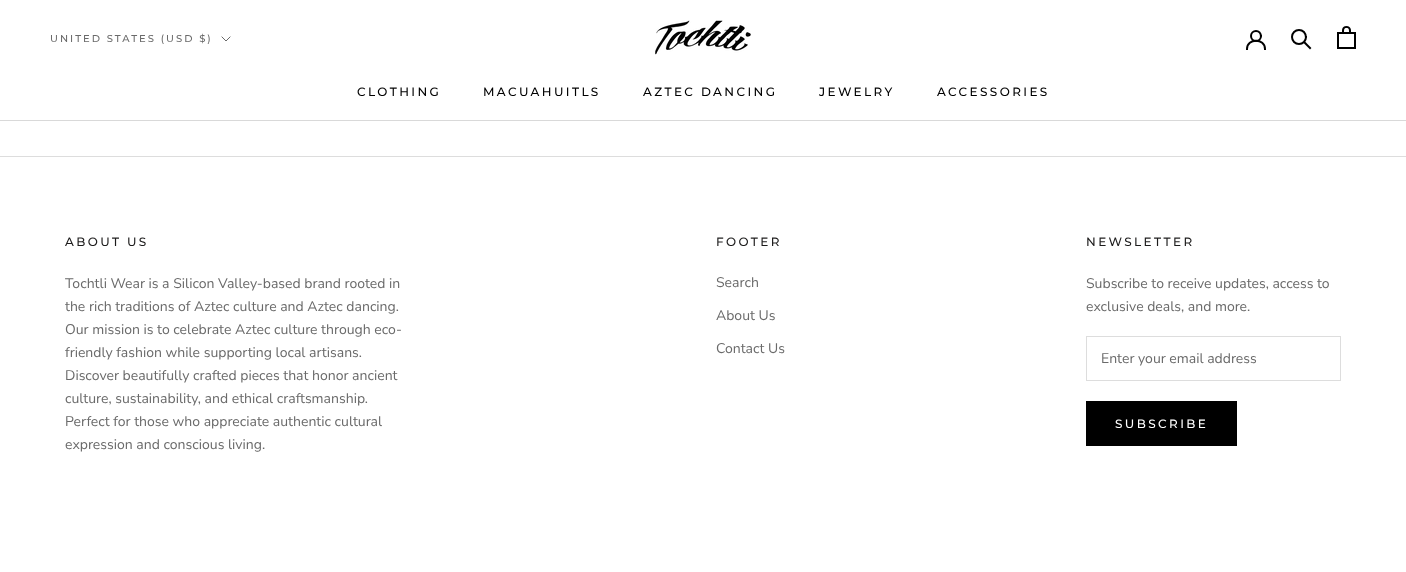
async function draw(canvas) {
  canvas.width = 1406
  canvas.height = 572
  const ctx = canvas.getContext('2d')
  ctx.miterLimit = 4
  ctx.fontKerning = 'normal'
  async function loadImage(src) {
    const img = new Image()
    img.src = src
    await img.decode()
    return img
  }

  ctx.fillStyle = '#fff'
  ctx.fillRect(0, 0, 1406, 572)
  ctx.fillStyle = '#d9d9d9'
  ctx.fillRect(0, 120, 1406, 1)
  ctx.drawImage(await loadImage('image0.png'), 655, 20, 96, 35)
  ctx.beginPath()
  ctx.moveTo(1247, 49)
  ctx.bezierCurveTo(1247, 38, 1265, 38, 1265, 49)
  ctx.strokeStyle = '#000'
  ctx.lineWidth = 2
  ctx.lineCap = 'square'
  ctx.stroke()
  ctx.beginPath()
  ctx.arc(1256, 36, 5, 0, 2 * Math.PI)
  ctx.stroke()
  ctx.beginPath()
  ctx.moveTo(1310, 48)
  ctx.lineTo(1304.5, 42.5)
  ctx.stroke()
  ctx.beginPath()
  ctx.arc(1299, 37, 7, 0, 2 * Math.PI)
  ctx.stroke()
  ctx.drawImage(await loadImage('image1.png'), 1337, 26, 19, 23)
  ctx.letterSpacing = '2px'
  ctx.font = '500 10px Montserrat'
  ctx.fillStyle = '#6a6a6a'
  ctx.fillText('UNITED STATES (USD $)', 50, 42)
  ctx.beginPath()
  ctx.moveTo(230, 37)
  ctx.lineTo(226, 41)
  ctx.lineTo(222, 37)
  ctx.strokeStyle = '#6a6a6a'
  ctx.lineWidth = 1
  ctx.stroke()
  ctx.letterSpacing = '2.4px'
  ctx.font = '500 12px Montserrat'
  ctx.fillStyle = '#000'
  ctx.fillText('CLOTHING', 357, 96)
  ctx.fillText('MACUAHUITLS', 483, 96)
  ctx.fillText('AZTEC DANCING', 643, 96)
  ctx.fillText('JEWELRY', 819, 96)
  ctx.fillText('ACCESSORIES', 937, 96)
  ctx.fillStyle = '#ddd'
  ctx.fillRect(0, 156, 1406, 1)
  ctx.fillStyle = '#1c1b1b'
  ctx.fillText('ABOUT US', 65, 246)
  ctx.letterSpacing = '0px'
  ctx.font = '14px Nunito Sans'
  ctx.fillStyle = '#6a6a6a'
  ctx.fillText('Tochtli Wear is a Silicon Valley-based brand rooted in', 65, 288)
  ctx.fillText('the rich traditions of Aztec culture and Aztec dancing.', 65, 311)
  ctx.fillText('Our mission is to celebrate Aztec culture through eco-', 65, 334)
  ctx.fillText('friendly fashion while supporting local artisans.', 65, 357)
  ctx.fillText('Discover beautifully crafted pieces that honor ancient', 65, 380)
  ctx.fillText('culture, sustainability, and ethical craftsmanship.', 65, 403)
  ctx.fillText('Perfect for those who appreciate authentic cultural', 65, 426)
  ctx.fillText('expression and conscious living.', 65, 449)
  ctx.letterSpacing = '2.4px'
  ctx.font = '500 12px Montserrat'
  ctx.fillStyle = '#1c1b1b'
  ctx.fillText('FOOTER', 716, 246)
  ctx.letterSpacing = '0px'
  ctx.font = '14px Nunito Sans'
  ctx.fillStyle = '#6a6a6a'
  ctx.fillText('Search', 716, 287)
  ctx.fillText('About Us', 716, 320)
  ctx.fillText('Contact Us', 716, 353)
  ctx.letterSpacing = '2.4px'
  ctx.font = '500 12px Montserrat'
  ctx.fillStyle = '#1c1b1b'
  ctx.fillText('NEWSLETTER', 1086, 246)
  ctx.letterSpacing = '0px'
  ctx.font = '14px Nunito Sans'
  ctx.fillStyle = '#6a6a6a'
  ctx.fillText('Subscribe to receive updates, access to', 1086, 288)
  ctx.fillText('exclusive deals, and more.', 1086, 311)
  ctx.strokeStyle = '#ddd'
  ctx.strokeRect(1086.5, 336.5, 254, 44)
  ctx.fillText('Enter your email address', 1101, 363)
  ctx.strokeStyle = '#000'
  ctx.strokeRect(1086.5, 401.5, 150, 44)
  ctx.fillStyle = '#000'
  ctx.fillRect(1087, 402, 149, 43)
  ctx.letterSpacing = '2.4px'
  ctx.font = '500 12px Montserrat'
  ctx.fillStyle = '#fff'
  ctx.fillText('SUBSCRIBE', 1115, 428)
}

draw(document.querySelector('canvas'))
